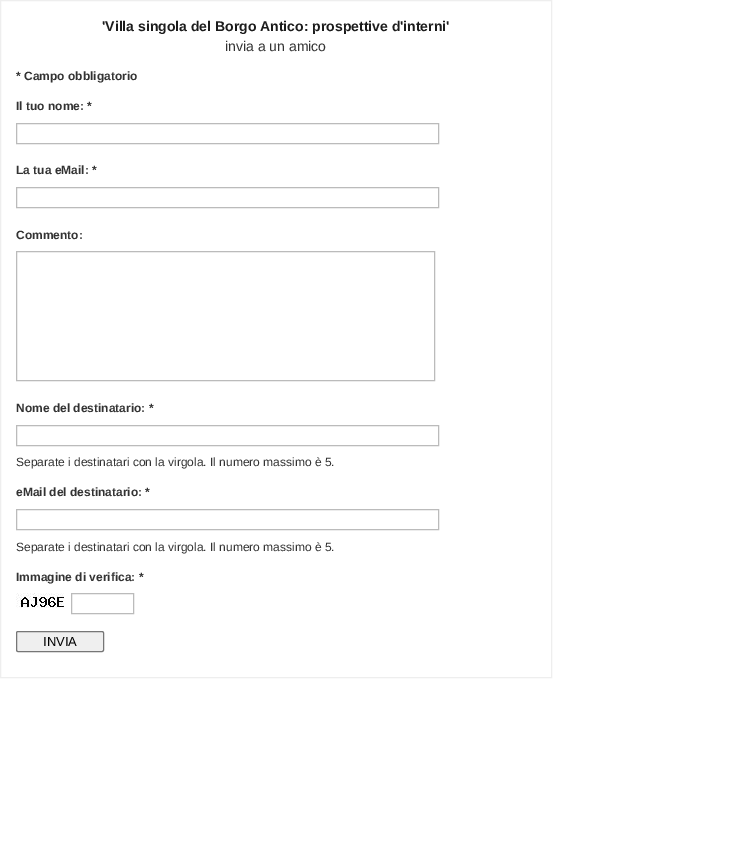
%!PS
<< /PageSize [741 863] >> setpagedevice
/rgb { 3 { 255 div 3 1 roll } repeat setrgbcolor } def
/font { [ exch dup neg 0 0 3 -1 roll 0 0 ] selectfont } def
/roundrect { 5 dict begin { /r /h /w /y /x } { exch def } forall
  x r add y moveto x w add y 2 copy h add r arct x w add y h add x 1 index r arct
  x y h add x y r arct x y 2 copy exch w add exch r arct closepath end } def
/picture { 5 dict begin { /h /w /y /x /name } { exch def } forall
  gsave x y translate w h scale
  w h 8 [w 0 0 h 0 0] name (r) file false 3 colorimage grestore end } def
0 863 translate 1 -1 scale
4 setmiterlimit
255 255 255 rgb
0 0 741 863 rectfill
238 238 238 rgb
0.5 0.5 551 677 rectstroke
187 187 187 rgb
16.5 123.5 422 20 rectstroke
16.5 187.5 422 20 rectstroke
16.5 251.5 418 129 rectstroke
16.5 425.5 422 20 rectstroke
16.5 509.5 422 20 rectstroke
(img/1.rgb) 16 593 48 15 picture
71.5 593.5 62 20 rectstroke
239 239 239 rgb
16.5 631.5 87 20 1.5 roundrect gsave fill grestore
118 118 118 rgb
stroke
/LiberationSans-Bold 14 font
28 28 28 rgb
102 31 moveto ('Villa singola del Borgo Antico: prospettive d'interni') show
/LiberationSans-Regular 14 font
51 51 51 rgb
225 51 moveto (invia a un amico) show
/LiberationSans-Bold 12 font
[
  [(* Campo obbligatorio) 16 80]
  [(Il tuo nome: *) 16 110]
  [(La tua eMail: *) 16 174]
  [(Commento:) 16 239]
  [(Nome del destinatario: *) 16 412]
] { aload pop moveto show } forall
/LiberationSans-Regular 12 font
16 466 moveto (Separate i destinatari con la virgola. Il numero massimo è 5.) show
/LiberationSans-Bold 12 font
16 496 moveto (eMail del destinatario: *) show
/LiberationSans-Regular 12 font
16 551 moveto (Separate i destinatari con la virgola. Il numero massimo è 5.) show
/LiberationSans-Bold 12 font
16 581 moveto (Immagine di verifica: *) show
/LiberationSans-Regular 13 font
0 0 0 rgb
43 646 moveto (INVIA) show
showpage
